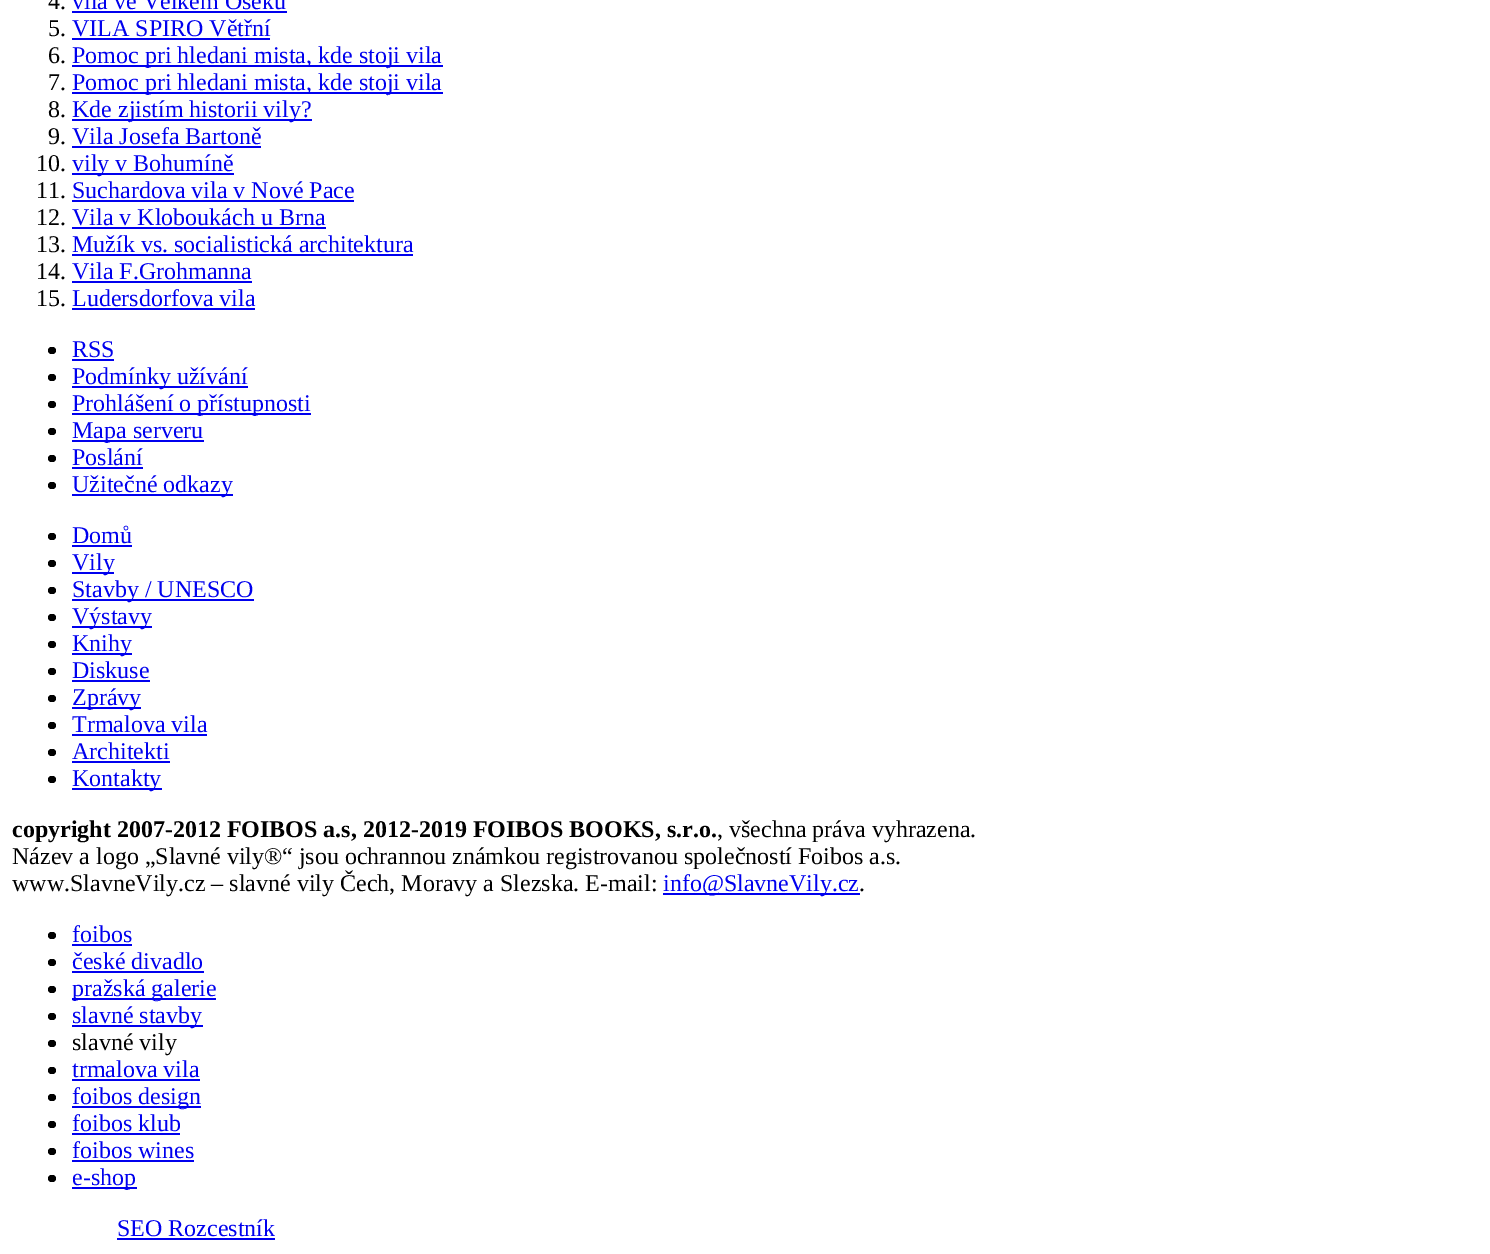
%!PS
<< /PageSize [1490 1254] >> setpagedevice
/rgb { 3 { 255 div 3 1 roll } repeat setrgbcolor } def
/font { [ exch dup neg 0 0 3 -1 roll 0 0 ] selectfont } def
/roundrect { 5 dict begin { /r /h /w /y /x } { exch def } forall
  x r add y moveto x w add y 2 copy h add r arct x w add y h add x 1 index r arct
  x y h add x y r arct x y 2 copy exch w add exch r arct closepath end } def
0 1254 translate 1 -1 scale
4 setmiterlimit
255 255 255 rgb
0 0 1490 1254 rectfill
[
  [72 11 215 2 0 0 238]
  [72 38 198 2 0 0 238]
  [72 65 371 2 0 0 238]
  [72 92 371 2 0 0 238]
  [72 119 240 2 0 0 238]
  [72 146 189 2 0 0 238]
  [72 173 162 2 0 0 238]
  [72 200 282 2 0 0 238]
  [72 227 254 2 0 0 238]
  [72 254 341 2 0 0 238]
  [72 281 180 2 0 0 238]
  [72 308 183 2 0 0 238]
] { aload pop rgb rectfill } forall
0 0 0 rgb
48 347 8 7 3.5 roundrect fill
0 0 238 rgb
72 359 42 2 rectfill
0 0 0 rgb
48 374 8 7 3.5 roundrect fill
0 0 238 rgb
72 386 176 2 rectfill
0 0 0 rgb
48 401 8 7 3.5 roundrect fill
0 0 238 rgb
72 413 239 2 rectfill
0 0 0 rgb
48 428 8 7 3.5 roundrect fill
0 0 238 rgb
72 440 132 2 rectfill
0 0 0 rgb
48 455 8 7 3.5 roundrect fill
0 0 238 rgb
72 467 71 2 rectfill
0 0 0 rgb
48 482 8 7 3.5 roundrect fill
0 0 238 rgb
72 494 161 2 rectfill
0 0 0 rgb
48 533 8 7 3.5 roundrect fill
0 0 238 rgb
72 545 60 2 rectfill
0 0 0 rgb
48 560 8 7 3.5 roundrect fill
0 0 238 rgb
72 572 42 2 rectfill
0 0 0 rgb
48 587 8 7 3.5 roundrect fill
0 0 238 rgb
72 599 182 2 rectfill
0 0 0 rgb
48 614 8 7 3.5 roundrect fill
0 0 238 rgb
72 626 80 2 rectfill
0 0 0 rgb
48 641 8 7 3.5 roundrect fill
0 0 238 rgb
72 653 60 2 rectfill
0 0 0 rgb
48 668 8 7 3.5 roundrect fill
0 0 238 rgb
72 680 78 2 rectfill
0 0 0 rgb
48 695 8 7 3.5 roundrect fill
0 0 238 rgb
72 707 69 2 rectfill
0 0 0 rgb
48 722 8 7 3.5 roundrect fill
0 0 238 rgb
72 734 135 2 rectfill
0 0 0 rgb
48 749 8 7 3.5 roundrect fill
0 0 238 rgb
72 761 98 2 rectfill
0 0 0 rgb
48 776 8 7 3.5 roundrect fill
0 0 238 rgb
72 788 90 2 rectfill
663 893 197 2 rectfill
0 0 0 rgb
48 932 8 7 3.5 roundrect fill
0 0 238 rgb
72 944 60 2 rectfill
0 0 0 rgb
48 959 8 7 3.5 roundrect fill
0 0 238 rgb
72 971 132 2 rectfill
0 0 0 rgb
48 986 8 7 3.5 roundrect fill
0 0 238 rgb
72 998 144 2 rectfill
0 0 0 rgb
48 1013 8 7 3.5 roundrect fill
0 0 238 rgb
72 1025 131 2 rectfill
0 0 0 rgb
48 1040 8 7 3.5 roundrect fill
48 1067 8 7 3.5 roundrect fill
0 0 238 rgb
72 1079 128 2 rectfill
0 0 0 rgb
48 1094 8 7 3.5 roundrect fill
0 0 238 rgb
72 1106 129 2 rectfill
0 0 0 rgb
48 1121 8 7 3.5 roundrect fill
0 0 238 rgb
72 1133 108 2 rectfill
0 0 0 rgb
48 1148 8 7 3.5 roundrect fill
0 0 238 rgb
72 1160 122 2 rectfill
0 0 0 rgb
48 1175 8 7 3.5 roundrect fill
0 0 238 rgb
72 1187 65 2 rectfill
117 1238 158 2 rectfill
/LiberationSerif-Regular 24 font
0 0 0 rgb
48 9 moveto (4.) show
0 0 238 rgb
72 9 moveto (vila ve Velkém Oseku) show
0 0 0 rgb
48 36 moveto (5.) show
0 0 238 rgb
72 36 moveto (VILA SPIRO Větřní) show
0 0 0 rgb
48 63 moveto (6.) show
0 0 238 rgb
72 63 moveto (Pomoc pri hledani mista, kde stoji vila) show
0 0 0 rgb
48 90 moveto (7.) show
0 0 238 rgb
72 90 moveto (Pomoc pri hledani mista, kde stoji vila) show
0 0 0 rgb
48 117 moveto (8.) show
0 0 238 rgb
72 117 moveto (Kde zjistím historii vily?) show
0 0 0 rgb
48 144 moveto (9.) show
0 0 238 rgb
72 144 moveto (Vila Josefa Bartoně) show
0 0 0 rgb
36 171 moveto (10.) show
0 0 238 rgb
72 171 moveto (vily v Bohumíně) show
0 0 0 rgb
36 198 moveto (11.) show
0 0 238 rgb
72 198 moveto (Suchardova vila v Nové Pace) show
0 0 0 rgb
36 225 moveto (12.) show
0 0 238 rgb
72 225 moveto (Vila v Kloboukách u Brna) show
0 0 0 rgb
36 252 moveto (13.) show
0 0 238 rgb
72 252 moveto (Mužík vs. socialistická architektura) show
0 0 0 rgb
36 279 moveto (14.) show
0 0 238 rgb
72 279 moveto (Vila F.Grohmanna) show
0 0 0 rgb
36 306 moveto (15.) show
0 0 238 rgb
[
  [(Ludersdorfova vila) 72 306]
  [(RSS) 72 357]
  [(Podmínky užívání) 72 384]
  [(Prohlášení o přístupnosti) 72 411]
  [(Mapa serveru) 72 438]
  [(Poslání) 72 465]
  [(Užitečné odkazy) 72 492]
  [(Domů) 72 543]
  [(Vily) 72 570]
  [(Stavby / UNESCO) 72 597]
  [(Výstavy) 72 624]
  [(Knihy) 72 651]
  [(Diskuse) 72 678]
  [(Zprávy) 72 705]
  [(Trmalova vila) 72 732]
  [(Architekti) 72 759]
  [(Kontakty) 72 786]
] { aload pop moveto show } forall
/LiberationSerif-Bold 24 font
0 0 0 rgb
12 837 moveto (copyright 2007-2012 FOIBOS a.s, 2012-2019 FOIBOS BOOKS, s.r.o.) show
/LiberationSerif-Regular 24 font
[
  [(, všechna práva vyhrazena.) 717 837]
  [(Název a logo „Slavné vily®“ jsou ochrannou známkou registrovanou společností Foibos a.s.) 12 864]
  [(www.SlavneVily.cz – slavné vily Čech, Moravy a Slezska. E-mail:) 12 891]
] { aload pop moveto show } forall
0 0 238 rgb
663 891 moveto (info@SlavneVily.cz) show
0 0 0 rgb
859 891 moveto (.) show
0 0 238 rgb
[
  [(foibos) 72 942]
  [(české divadlo) 72 969]
  [(pražská galerie) 72 996]
  [(slavné stavby) 72 1023]
] { aload pop moveto show } forall
0 0 0 rgb
72 1050 moveto (slavné vily) show
0 0 238 rgb
[
  [(trmalova vila) 72 1077]
  [(foibos design) 72 1104]
  [(foibos klub) 72 1131]
  [(foibos wines) 72 1158]
  [(e-shop) 72 1185]
  [(SEO Rozcestník) 117 1236]
] { aload pop moveto show } forall
showpage
